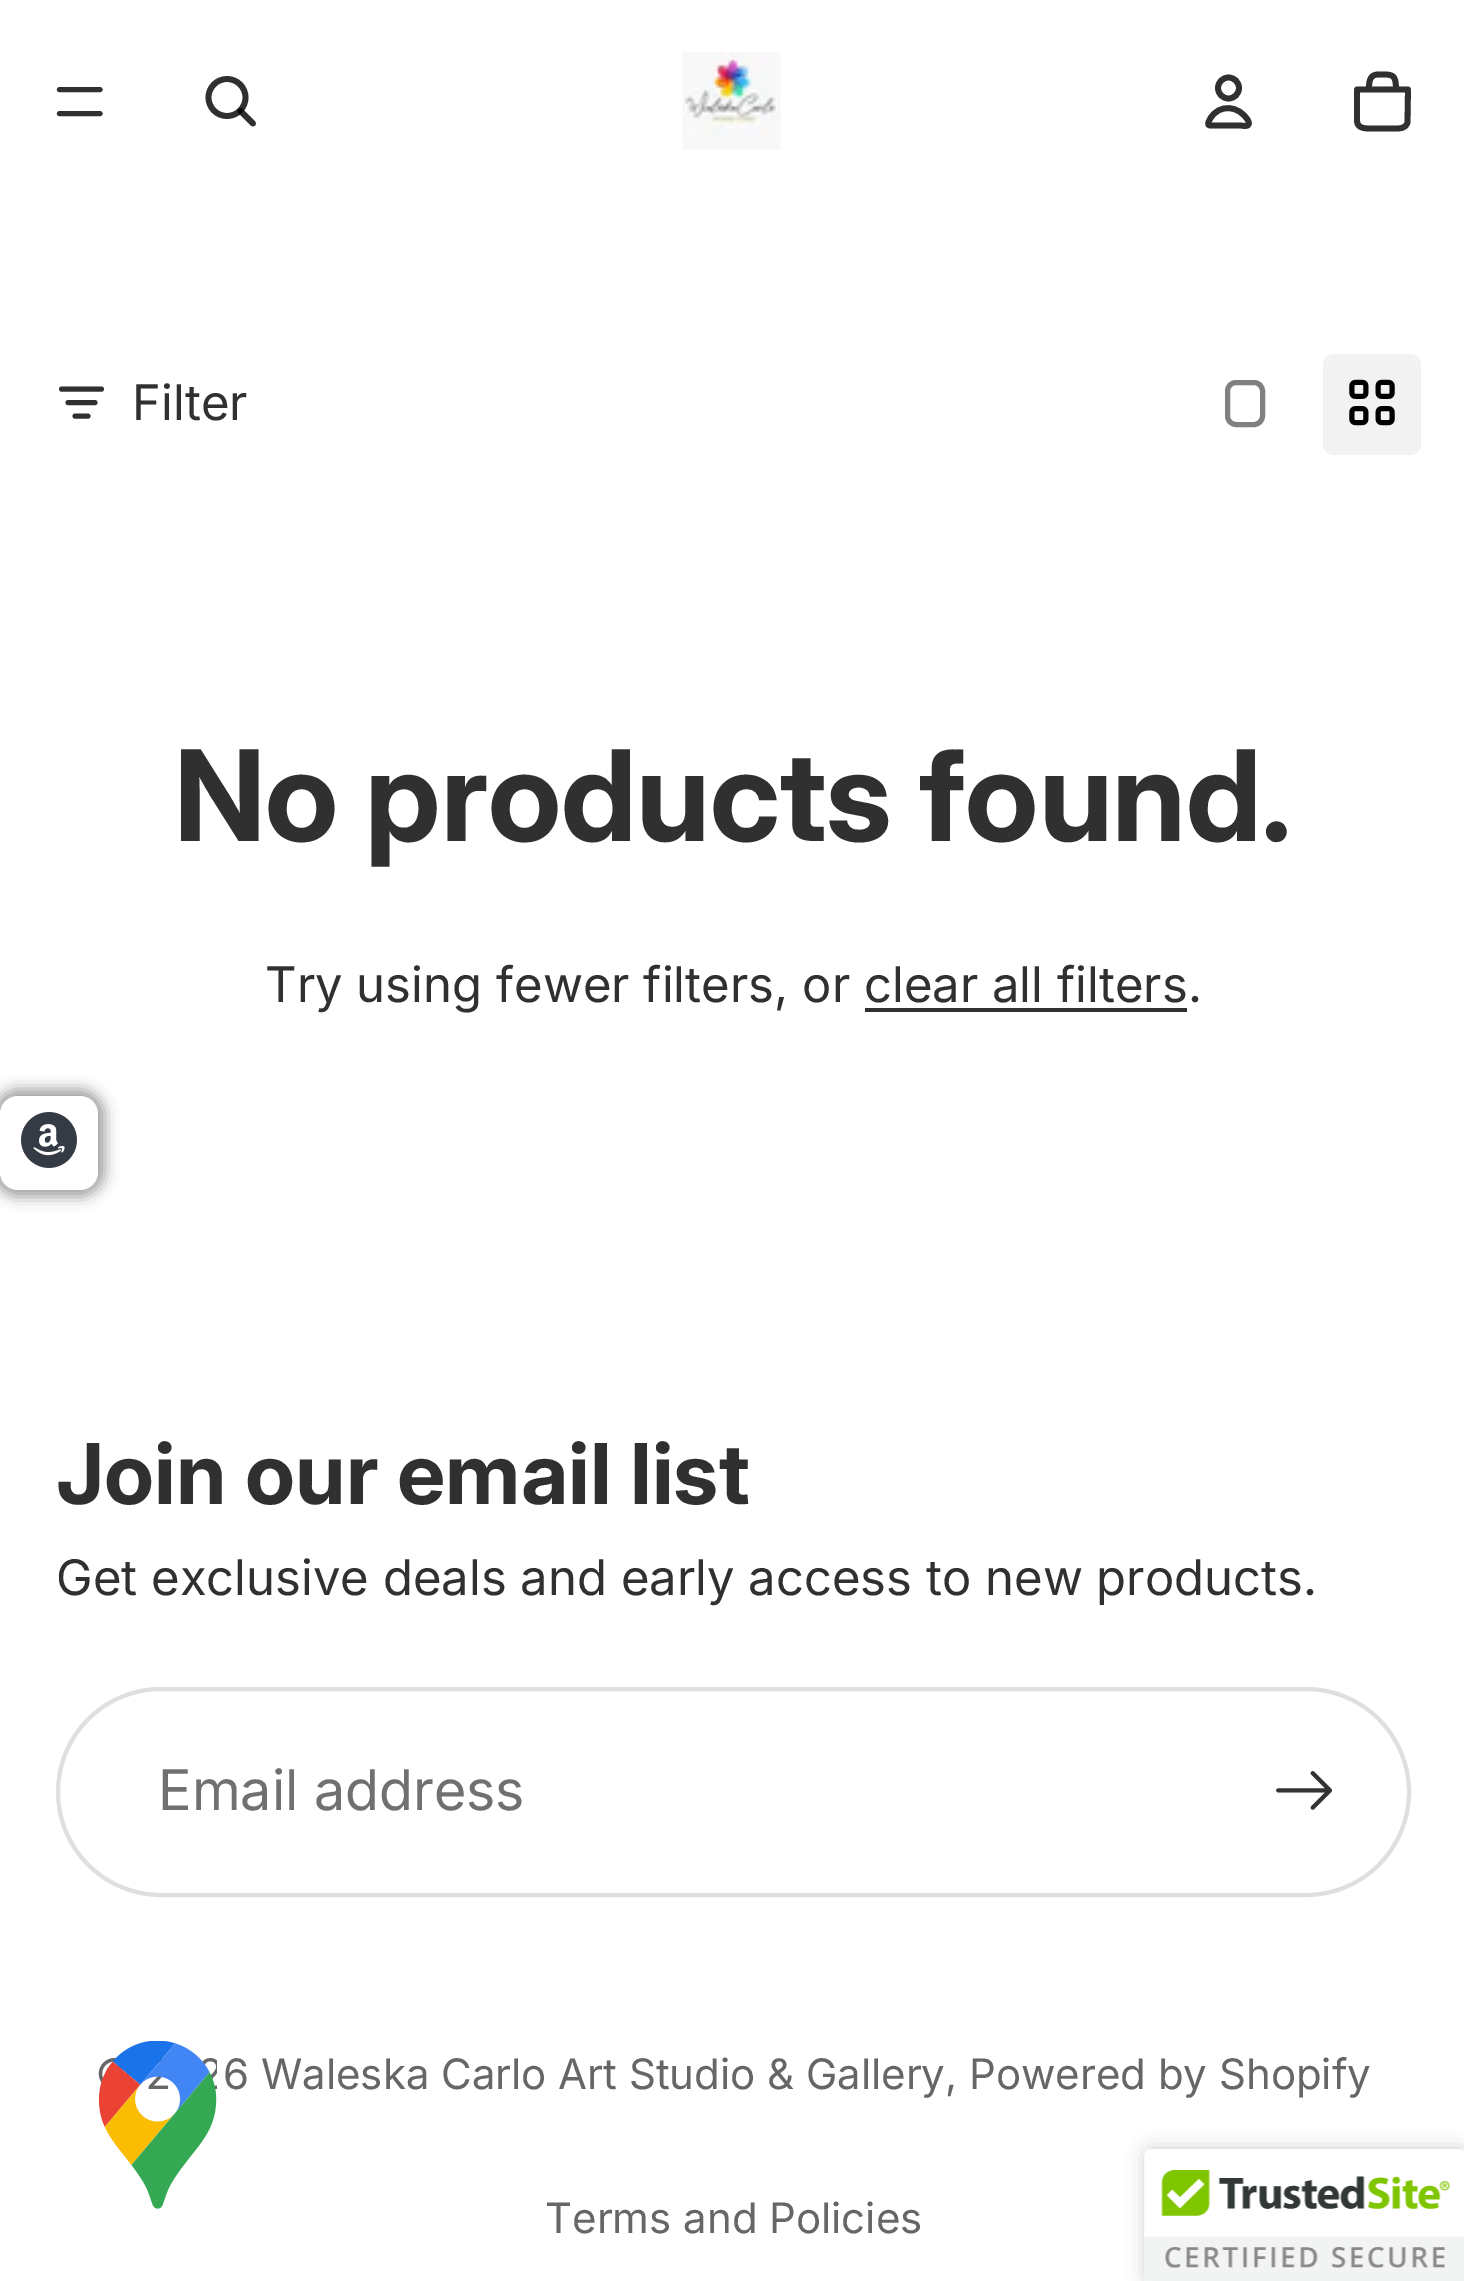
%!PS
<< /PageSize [1464 2281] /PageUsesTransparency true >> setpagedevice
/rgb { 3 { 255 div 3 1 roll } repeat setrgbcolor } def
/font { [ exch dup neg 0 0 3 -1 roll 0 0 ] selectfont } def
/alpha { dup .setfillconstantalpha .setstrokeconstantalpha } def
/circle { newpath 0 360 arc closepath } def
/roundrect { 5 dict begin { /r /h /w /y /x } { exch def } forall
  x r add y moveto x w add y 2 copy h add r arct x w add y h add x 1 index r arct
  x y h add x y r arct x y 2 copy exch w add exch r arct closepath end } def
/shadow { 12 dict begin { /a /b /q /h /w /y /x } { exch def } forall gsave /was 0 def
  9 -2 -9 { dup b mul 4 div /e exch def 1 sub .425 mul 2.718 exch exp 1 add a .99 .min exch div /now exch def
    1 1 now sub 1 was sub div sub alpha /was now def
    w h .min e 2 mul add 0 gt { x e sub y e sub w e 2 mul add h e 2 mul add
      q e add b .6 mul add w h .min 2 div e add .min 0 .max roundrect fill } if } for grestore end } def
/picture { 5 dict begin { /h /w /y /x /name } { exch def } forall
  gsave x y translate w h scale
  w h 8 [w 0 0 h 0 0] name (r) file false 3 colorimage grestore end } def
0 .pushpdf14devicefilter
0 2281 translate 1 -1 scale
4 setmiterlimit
255 255 255 rgb
0 0 1464 2281 rectfill
48 48 48 rgb
5.1 setlinewidth
1 setlinecap
59.5 89.5 moveto 100 89.5 lineto 59.5 113.5 moveto 100 113.5 lineto stroke
5.8 setlinewidth
0 setlinecap
227 97.5 18.5 circle stroke
0.81 alpha
0 0 0 rgb
1 setlinecap
1 setlinejoin
240.5 111 moveto 253 123.5 lineto stroke
1 alpha
(img/1.rgb) 682 52 99 98 picture
48 48 48 rgb
0 setlinecap
0 setlinejoin
1228.5 88 10.5 circle stroke
1 setlinecap
1 setlinejoin
1210 119 moveto 1206 126.5 1208.5 125.5 1216.5 125.5 curveto 1240.5 125.5 lineto 1241.5 125.5 1247.5 127 1248.5 124.5 curveto 1249.5 123 1248.5 122 1248 120.5 curveto 1239.5 105.5 1219 103 1210 119 curveto stroke
1357 89.5 moveto 1408 89.5 lineto 1407.5 122.5 lineto 1405.5 129 1399.5 128.5 1394 128.5 curveto 1371 128.5 lineto 1365 128.5 1357 128.5 1357 120.5 curveto closepath 1378 74.5 moveto 1392.5 74.5 1396 73.5 1396 89.5 curveto 1369 89.5 lineto 1369 83 1369 74.5 1378 74.5 curveto stroke
5 setlinewidth
0 setlinejoin
101.5 389 moveto 61.5 389 lineto 95 402.5 moveto 68 402.5 lineto 75 416 moveto 88 416 lineto stroke
128 128 128 rgb
0 setlinecap
1227.5 382.5 35 42 8.5 roundrect stroke
242 242 242 rgb
1323 354 98 101 11 roundrect fill
(img/2.rgb) 1349 379 46 47 picture
48 48 48 rgb
865 1008 322 4 rectfill
gsave
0 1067 moveto 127 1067 lineto 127 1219 lineto 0 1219 lineto closepath 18 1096 moveto 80 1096 lineto 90 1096 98 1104 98 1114 curveto 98 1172 lineto 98 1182 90 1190 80 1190 curveto 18 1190 lineto 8 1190 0 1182 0 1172 curveto 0 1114 lineto 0 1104 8 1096 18 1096 curveto closepath eoclip newpath
158 158 158 rgb
-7 1089 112 108 25 7 1 shadow
grestore
255 255 255 rgb
0 1096 98 94 18 roundrect fill
(img/3.rgb) 21 1112 56 56 picture
223 223 223 rgb
4 setlinewidth
58 1689 1351 206 103 roundrect stroke
(img/4.rgb) 1276 1771 57 39 picture
(img/5.rgb) 98 2041 119 168 picture
0 0 0 rgb
1145 2149 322 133 7 9 0.2 shadow
255 255 255 rgb
1152 2149 moveto 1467 2149 lineto 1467 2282 lineto 1145 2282 lineto 1145 2156 lineto 1145 2152 1148 2149 1152 2149 curveto closepath fill
(img/6.rgb) 1144 2149 320 132 picture
/Inter-Regular 49 font
48 48 48 rgb
132 420 moveto (Filter) show
/Inter-Bold 126 font
174 841 moveto (No products found.) show
/Inter-Regular 49 font
265 1002 moveto (Try using fewer filters, or clear all filters.) show
/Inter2-Bold 84 font
56 1504 moveto (Join our email list) show
/Inter-Regular 49 font
56 1595 moveto (Get exclusive deals and early access to new products.) show
/Inter2-Regular 56 font
112 112 112 rgb
158 1810 moveto (Email address) show
/Inter-Regular 42 font
102 102 102 rgb
223 2089 moveto (6 Waleska Carlo Art Studio & Gallery, Powered by Shopify) show
545 2233 moveto (Terms and Policies) show
.poppdf14devicefilter showpage
